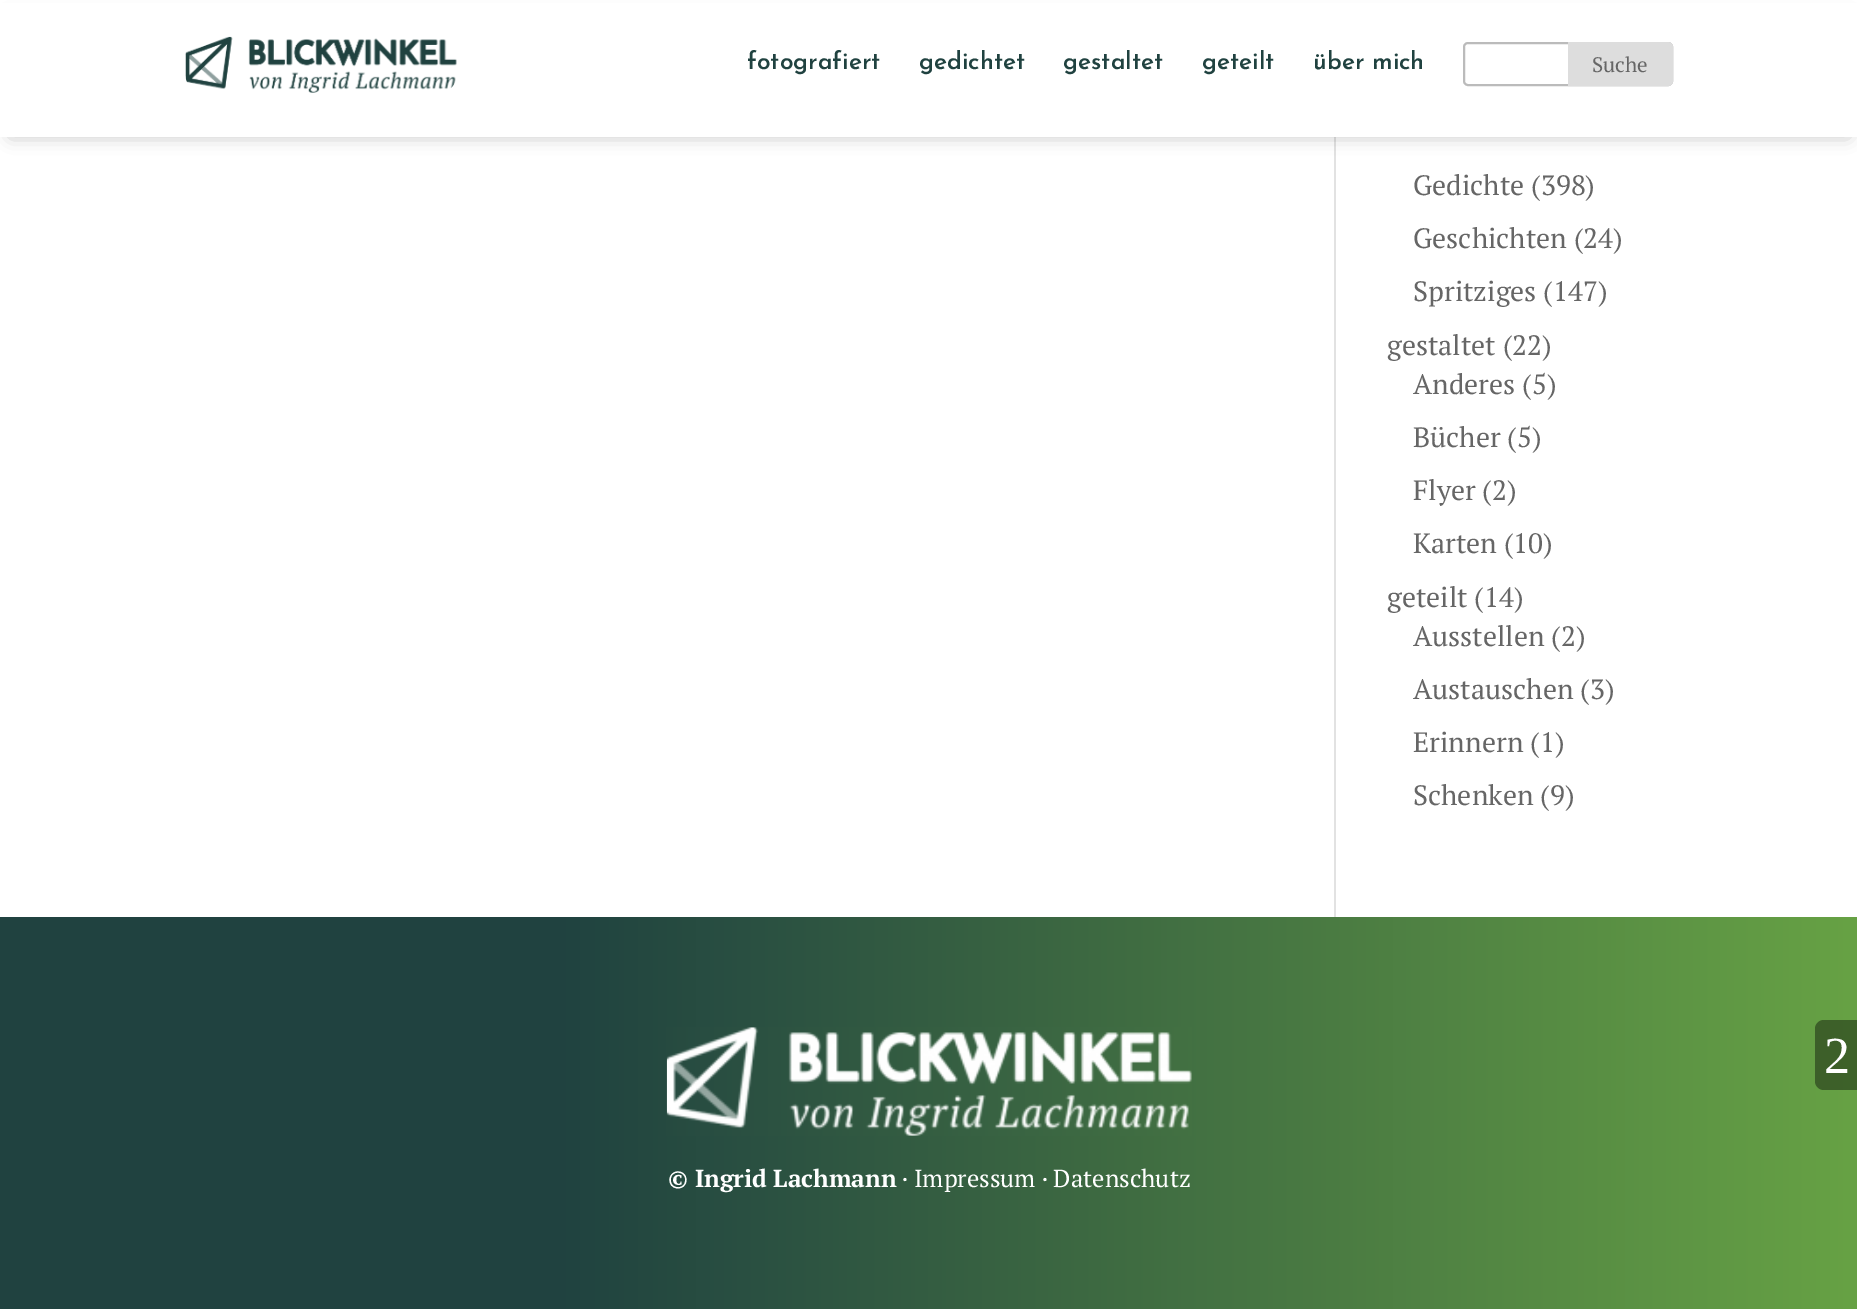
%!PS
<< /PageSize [1857 1309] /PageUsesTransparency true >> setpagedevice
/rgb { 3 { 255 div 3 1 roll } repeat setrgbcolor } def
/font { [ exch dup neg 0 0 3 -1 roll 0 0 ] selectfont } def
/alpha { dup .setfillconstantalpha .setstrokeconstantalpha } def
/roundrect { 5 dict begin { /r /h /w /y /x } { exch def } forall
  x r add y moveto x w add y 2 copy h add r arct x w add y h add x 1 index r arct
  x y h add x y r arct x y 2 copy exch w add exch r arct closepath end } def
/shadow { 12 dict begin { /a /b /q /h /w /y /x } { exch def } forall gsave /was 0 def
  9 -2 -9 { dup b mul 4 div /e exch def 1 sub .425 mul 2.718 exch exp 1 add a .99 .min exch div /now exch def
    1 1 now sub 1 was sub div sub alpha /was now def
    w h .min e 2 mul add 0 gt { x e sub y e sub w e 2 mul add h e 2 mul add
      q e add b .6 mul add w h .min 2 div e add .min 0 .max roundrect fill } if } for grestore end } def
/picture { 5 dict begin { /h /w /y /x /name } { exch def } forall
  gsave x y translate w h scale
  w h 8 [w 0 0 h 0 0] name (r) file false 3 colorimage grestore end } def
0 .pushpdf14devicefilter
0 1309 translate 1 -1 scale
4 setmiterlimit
255 255 255 rgb
0 0 1857 1309 rectfill
226 226 226 rgb
1334 137 2 780 rectfill
0 0 0 rgb
11 19 1837 116 0 9 0.3 shadow
255 255 255 rgb
0 3 1857 134 rectfill
(img/1.rgb) 185 36 272 57 picture
187 187 187 rgb
2 setlinewidth
1464 43 208 42 4 roundrect stroke
221 221 221 rgb
1569 43 moveto 1668 43 lineto 1670 43 1672 45 1672 47 curveto 1672 81 lineto 1672 83 1670 85 1668 85 curveto 1569 85 lineto closepath gsave fill grestore
stroke
gsave 0 917 moveto 1857 917 lineto 1857 1309 lineto 0 1309 lineto closepath clip newpath
<< /ShadingType 2 /ColorSpace /DeviceRGB /Coords [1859 1113 0 1113] /Extend [true true] /Function << /FunctionType 3 /Domain [0 1] /Functions [<< /FunctionType 2 /Domain [0 1] /C0 [0.404 0.635 0.271] /C1 [0.125 0.259 0.251] /N 1 >> << /FunctionType 2 /Domain [0 1] /C0 [0.125 0.259 0.251] /C1 [0.125 0.259 0.251] /N 1 >>] /Bounds [0.7] /Encode [0 1 0 1] >> >> shfill grestore
(img/2.rgb) 666 1027 526 109 picture
0.4 alpha
0 0 0 rgb
1824 1020 moveto 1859 1020 lineto 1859 1090 lineto 1824 1090 lineto 1819 1090 1815 1086 1815 1081 curveto 1815 1029 lineto 1815 1024 1819 1020 1824 1020 curveto closepath fill
/JosefinSans-SemiBold 24.5 font
1 alpha
32 66 64 rgb
[
  [(fotografiert) 747 69]
  [(gedichtet) 919 69]
  [(gestaltet) 1063 69]
  [(geteilt) 1202 69]
  [(über mich) 1313 69]
] { aload pop moveto show } forall
/PTSerif-Regular 21 font
102 102 102 rgb
1592 72 moveto (Suche) show
/PTSerif-Regular 28 font
[
  [(Gedichte \(398\)) 1413 195]
  [(Geschichten \(24\)) 1413 248]
  [(Spritziges \(147\)) 1413 301]
  [(gestaltet \(22\)) 1387 355]
  [(Anderes \(5\)) 1413 394]
  [(Bücher \(5\)) 1413 447]
  [(Flyer \(2\)) 1413 500]
  [(Karten \(10\)) 1413 553]
  [(geteilt \(14\)) 1387 607]
  [(Ausstellen \(2\)) 1413 646]
  [(Austauschen \(3\)) 1413 699]
  [(Erinnern \(1\)) 1413 752]
  [(Schenken \(9\)) 1413 805]
] { aload pop moveto show } forall
/PTSerif-Bold 24.5 font
255 255 255 rgb
668 1187 moveto (© Ingrid Lachmann) show
/PTSerif-Regular 24.5 font
902 1187 moveto (· Impressum · Datenschutz) show
/LiberationSerif-Regular 52 font
1824 1073 moveto (2) show
.poppdf14devicefilter showpage
